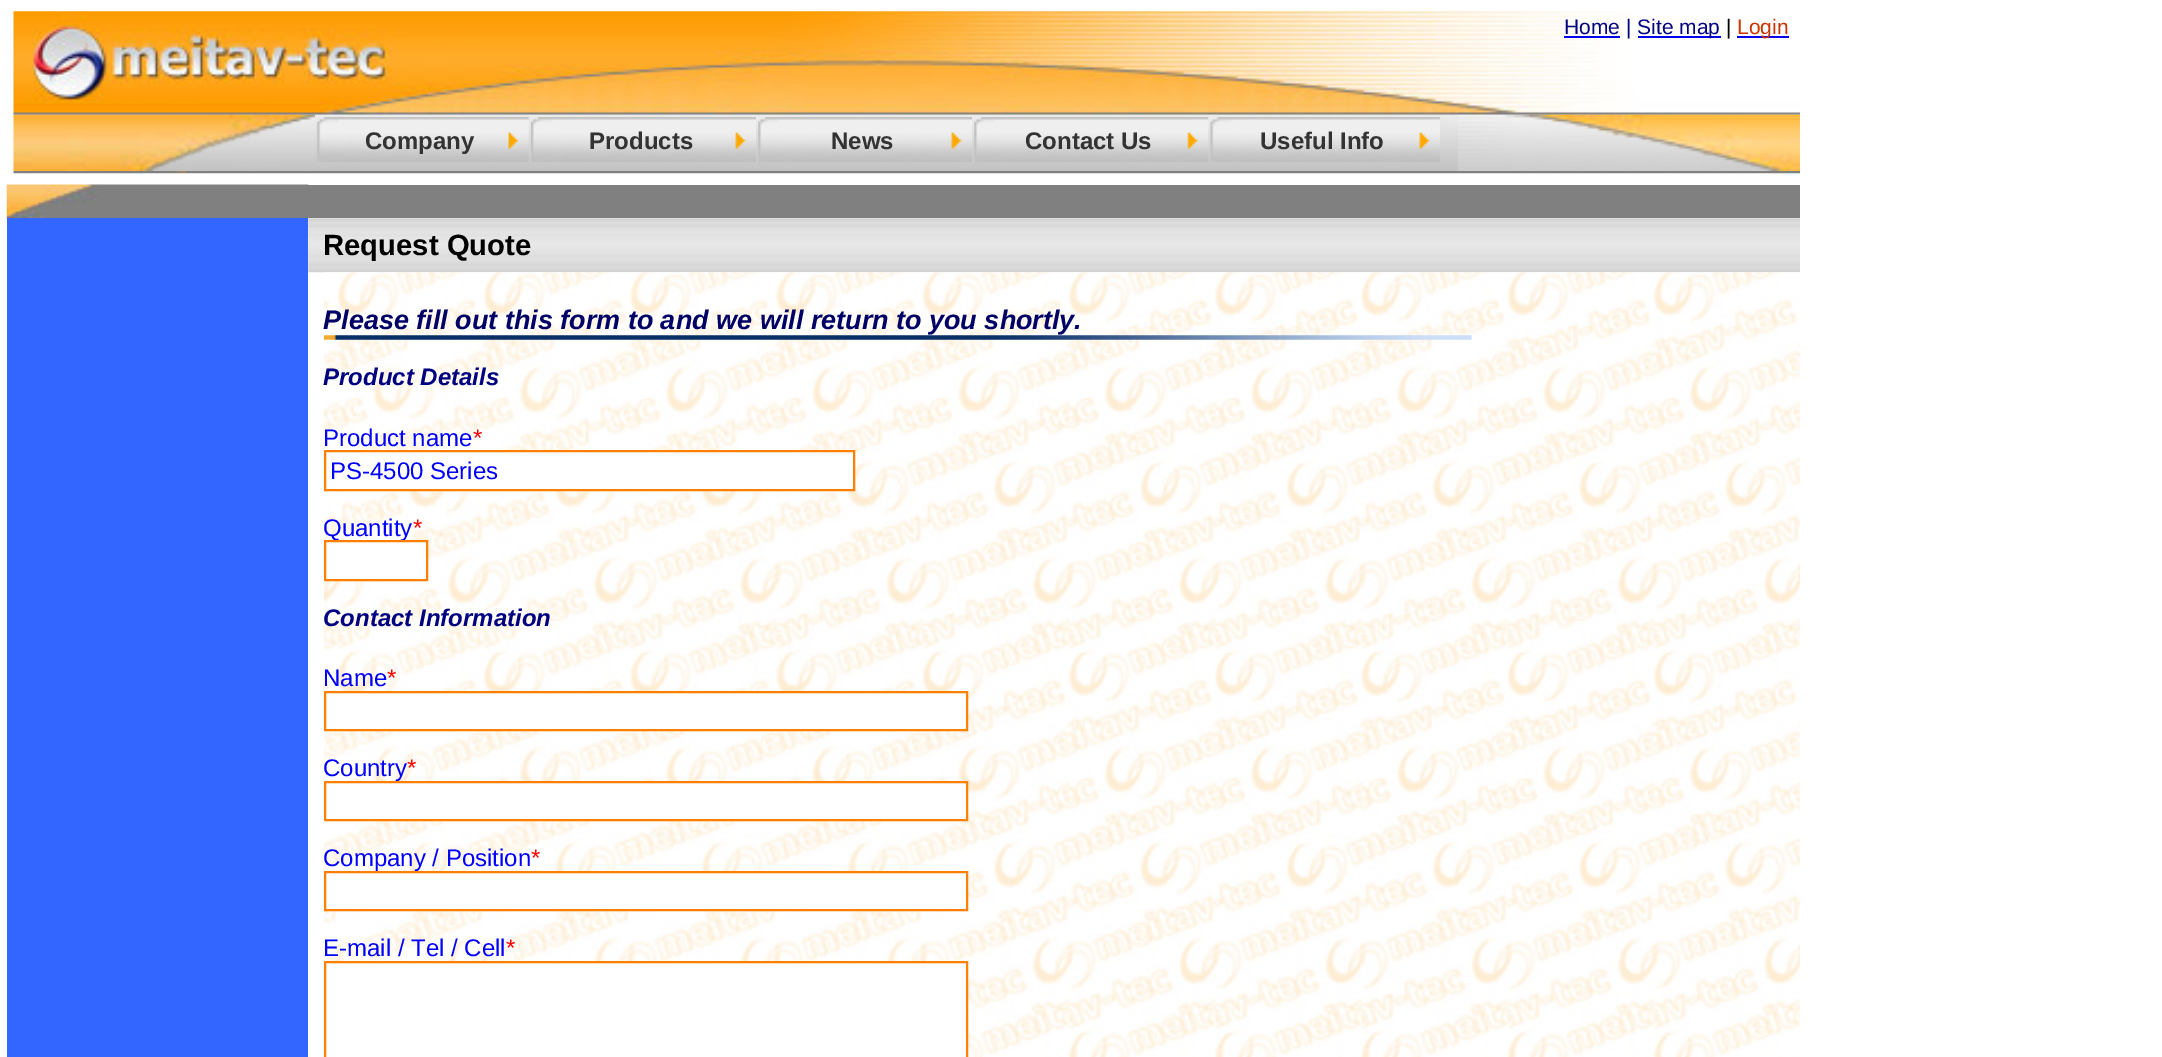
%!PS
<< /PageSize [2162 1057] >> setpagedevice
/rgb { 3 { 255 div 3 1 roll } repeat setrgbcolor } def
/font { [ exch dup neg 0 0 3 -1 roll 0 0 ] selectfont } def
/picture { 5 dict begin { /h /w /y /x /name } { exch def } forall
  gsave x y translate w h scale
  w h 8 [w 0 0 h 0 0] name (r) file false 3 colorimage grestore end } def
0 1057 translate 1 -1 scale
4 setmiterlimit
255 255 255 rgb
0 0 2162 1057 rectfill
(img/1.rgb) 13 11 1787 104 picture
[
  [1564 36 56 2 0 0 238]
  [1638 36 83 2 0 0 238]
  [1737 36 52 2 0 0 238]
] { aload pop rgb rectfill } forall
(img/2.rgb) 13 114 302 57 picture
(img/3.rgb) 315 114 1143 57 picture
(img/4.rgb) 317 117 212 45 picture
(img/5.rgb) 508 132 11 17 picture
(img/6.rgb) 531 117 225 45 picture
(img/7.rgb) 735 132 11 17 picture
(img/8.rgb) 758 117 214 45 picture
(img/9.rgb) 951 132 11 17 picture
(img/10.rgb) 974 117 235 45 picture
(img/11.rgb) 1187 132 11 17 picture
(img/12.rgb) 1210 117 230 45 picture
(img/13.rgb) 1419 132 11 17 picture
(img/14.rgb) 1458 114 342 57 picture
(img/15.rgb) 13 171 1787 3 picture
(img/16.rgb) 6 184 303 35 picture
128 128 128 rgb
308 185 1492 33 rectfill
51 102 255 rgb
7 218 301 839 rectfill
(img/17.rgb) 308 218 16 55 picture
(img/18.rgb) 324 218 1476 55 picture
(img/19.rgb) 324 272 1476 785 picture
(img/20.rgb) 324 335 1148 5 picture
255 255 255 rgb
325 451 moveto 854 451 lineto 854 490 lineto 325 490 lineto closepath gsave fill grestore
255 128 0 rgb
2 setlinewidth
stroke
255 255 255 rgb
325 692 moveto 967 692 lineto 967 730 lineto 325 730 lineto closepath gsave fill grestore
255 128 0 rgb
stroke
255 255 255 rgb
325 782 moveto 967 782 lineto 967 820 lineto 325 820 lineto closepath gsave fill grestore
255 128 0 rgb
stroke
255 255 255 rgb
325 872 moveto 967 872 lineto 967 910 lineto 325 910 lineto closepath gsave fill grestore
255 128 0 rgb
stroke
255 255 255 rgb
325 962 moveto 967 962 lineto 967 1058 lineto 325 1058 lineto closepath gsave fill grestore
255 128 0 rgb
stroke
/LiberationSans-Regular 21 font
0 0 128 rgb
1564 34 moveto (Home |) show
1637 34 moveto (Site map) show
0 0 0 rgb
1726 34 moveto (|) show
204 51 0 rgb
1737 34 moveto (Login) show
/LiberationSans-Bold 24 font
51 51 51 rgb
[
  [(Company) 365 149]
  [(Products) 589 149]
  [(News) 831 149]
  [(Contact Us) 1025 149]
  [(Useful Info) 1260 149]
] { aload pop moveto show } forall
/LiberationSans-Bold 29.25 font
0 0 0 rgb
323 255 moveto (Request Quote) show
/LiberationSans-BoldItalic 27 font
0 0 102 rgb
323 329 moveto (Please fill out this form to and we will return to you shortly.) show
/LiberationSans-BoldItalic 24 font
0 0 128 rgb
323 385 moveto (Product Details) show
/LiberationSans-Regular 24 font
0 0 255 rgb
323 446 moveto (Product name) show
255 0 0 rgb
473 446 moveto (*) show
0 0 255 rgb
330 479 moveto (PS-4500 Series) show
323 536 moveto (Quantity) show
255 0 0 rgb
413 536 moveto (*) show
255 255 255 rgb
325 541 moveto 427 541 lineto 427 580 lineto 325 580 lineto closepath gsave fill grestore
255 128 0 rgb
stroke
/LiberationSans-BoldItalic 24 font
0 0 128 rgb
323 626 moveto (Contact Information) show
/LiberationSans-Regular 24 font
0 0 255 rgb
323 686 moveto (Name) show
255 0 0 rgb
387 686 moveto (*) show
0 0 255 rgb
323 776 moveto (Country) show
255 0 0 rgb
407 776 moveto (*) show
0 0 255 rgb
323 866 moveto (Company / Position) show
255 0 0 rgb
531 866 moveto (*) show
0 0 255 rgb
323 956 moveto (E-mail / Tel / Cell) show
255 0 0 rgb
506 956 moveto (*) show
showpage
